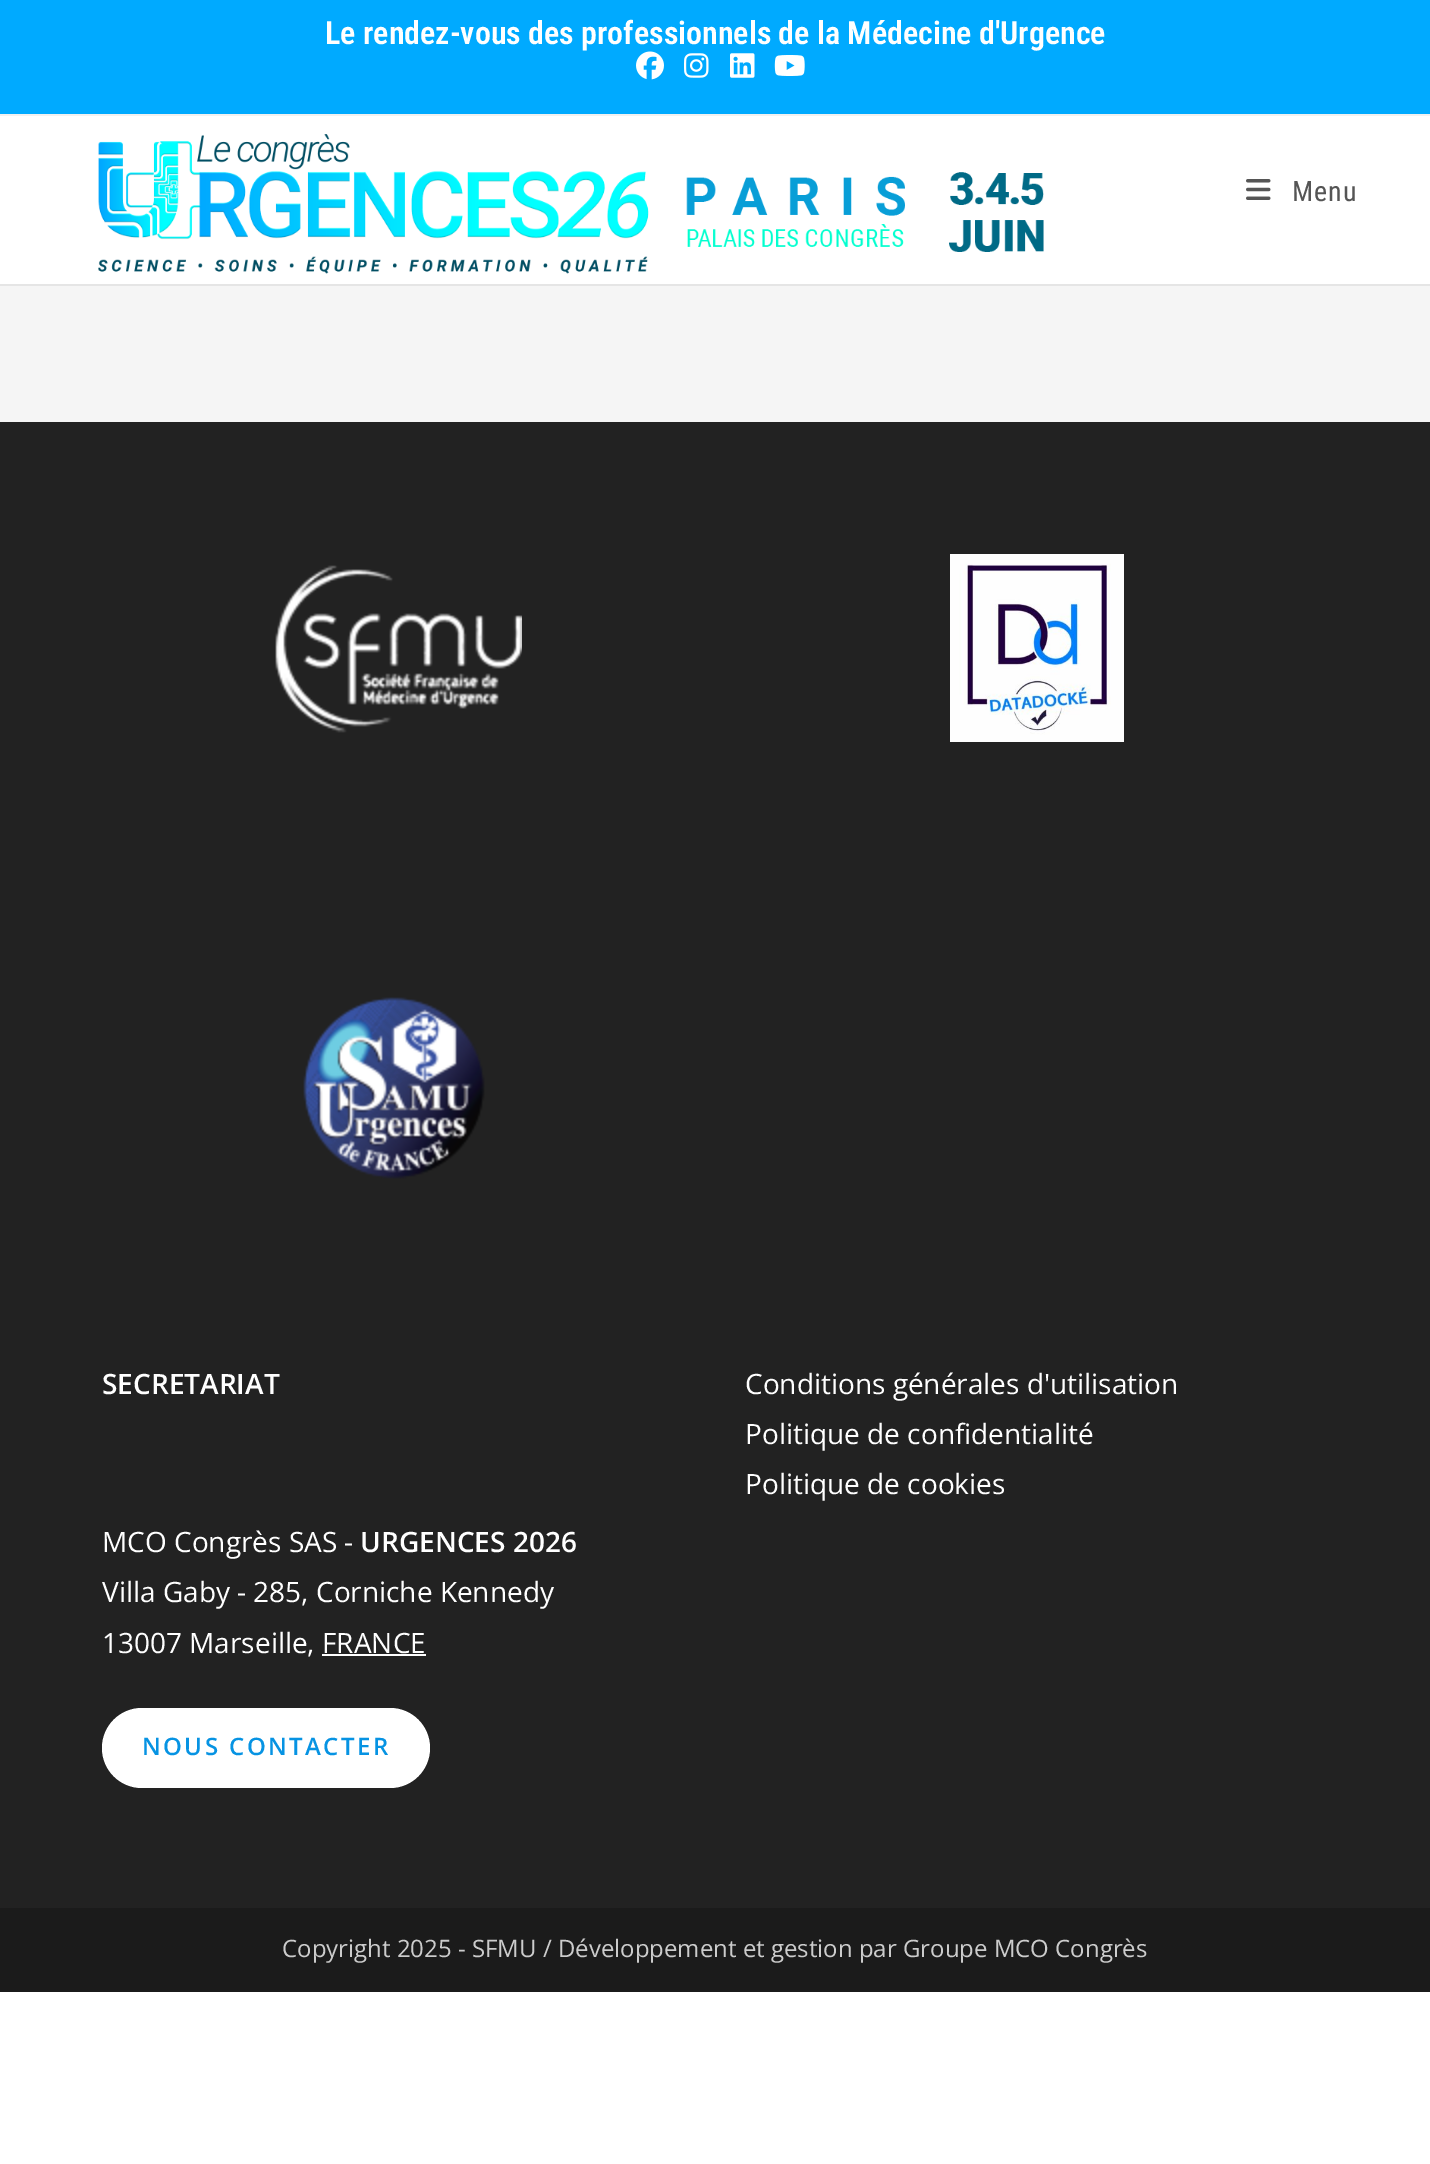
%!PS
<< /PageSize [1430 2164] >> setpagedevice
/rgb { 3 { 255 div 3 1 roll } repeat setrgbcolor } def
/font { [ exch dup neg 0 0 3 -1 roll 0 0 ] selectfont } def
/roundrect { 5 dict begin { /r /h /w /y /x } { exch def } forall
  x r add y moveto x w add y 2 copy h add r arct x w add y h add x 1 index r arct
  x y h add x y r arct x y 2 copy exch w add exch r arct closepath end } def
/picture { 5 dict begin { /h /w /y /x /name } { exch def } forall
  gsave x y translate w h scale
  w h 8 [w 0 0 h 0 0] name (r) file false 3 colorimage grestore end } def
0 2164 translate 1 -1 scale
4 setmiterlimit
255 255 255 rgb
0 0 1430 2164 rectfill
0 170 255 rgb
0 0 1430 114 rectfill
241 241 241 rgb
0 114 1430 2 rectfill
(img/1.rgb) 636 51 28 29 picture
(img/2.rgb) 684 53 25 25 picture
(img/3.rgb) 730 53 25 25 picture
(img/4.rgb) 774 55 31 21 picture
229 229 229 rgb
0 284 1430 2 rectfill
(img/5.rgb) 98 134 946 140 picture
(img/6.rgb) 1246 179 25 21 picture
245 245 245 rgb
0 286 1430 136 rectfill
34 34 34 rgb
0 422 1430 1486 rectfill
(img/7.rgb) 275 565 247 168 picture
(img/8.rgb) 303 997 182 182 picture
(img/9.rgb) 950 554 174 188 picture
255 255 255 rgb
322 1654 104 2 rectfill
102 1708 328 80 40 roundrect fill
27 27 27 rgb
0 1908 1430 84 rectfill
/RobotoCondensed-SemiBold 32 font
255 255 255 rgb
325 44 moveto (Le rendez-vous des professionnels de la Médecine d'Urgence) show
/RobotoCondensed-Regular 28 font
85 85 85 rgb
1292 201 moveto 1 0 (Menu) ashow
/OpenSans-SemiBold 28 font
255 255 255 rgb
102 1394 moveto (SECRETARIAT) show
/OpenSans-Regular 28 font
102 1552 moveto (MCO Congrès SAS -) show
/OpenSans-SemiBold 28 font
360 1552 moveto (URGENCES 2026) show
/OpenSans-Regular 28 font
102 1602 moveto (Villa Gaby - 285, Corniche Kennedy) show
102 1653 moveto (13007 Marseille, FRANCE) show
/OpenSans-SemiBold 24 font
6 147 227 rgb
142 1755 moveto 2.4 0 (NOUS CONTACTER) ashow
/OpenSans-Regular 28 font
255 255 255 rgb
[
  [(Conditions générales d'utilisation) 745 1394]
  [(Politique de confidentialité) 745 1444]
  [(Politique de cookies) 745 1494]
] { aload pop moveto show } forall
/OpenSans-Regular 24 font
204 204 204 rgb
282 1957 moveto (Copyright 2025 - SFMU / Développement et gestion par Groupe MCO Congrès) show
showpage
